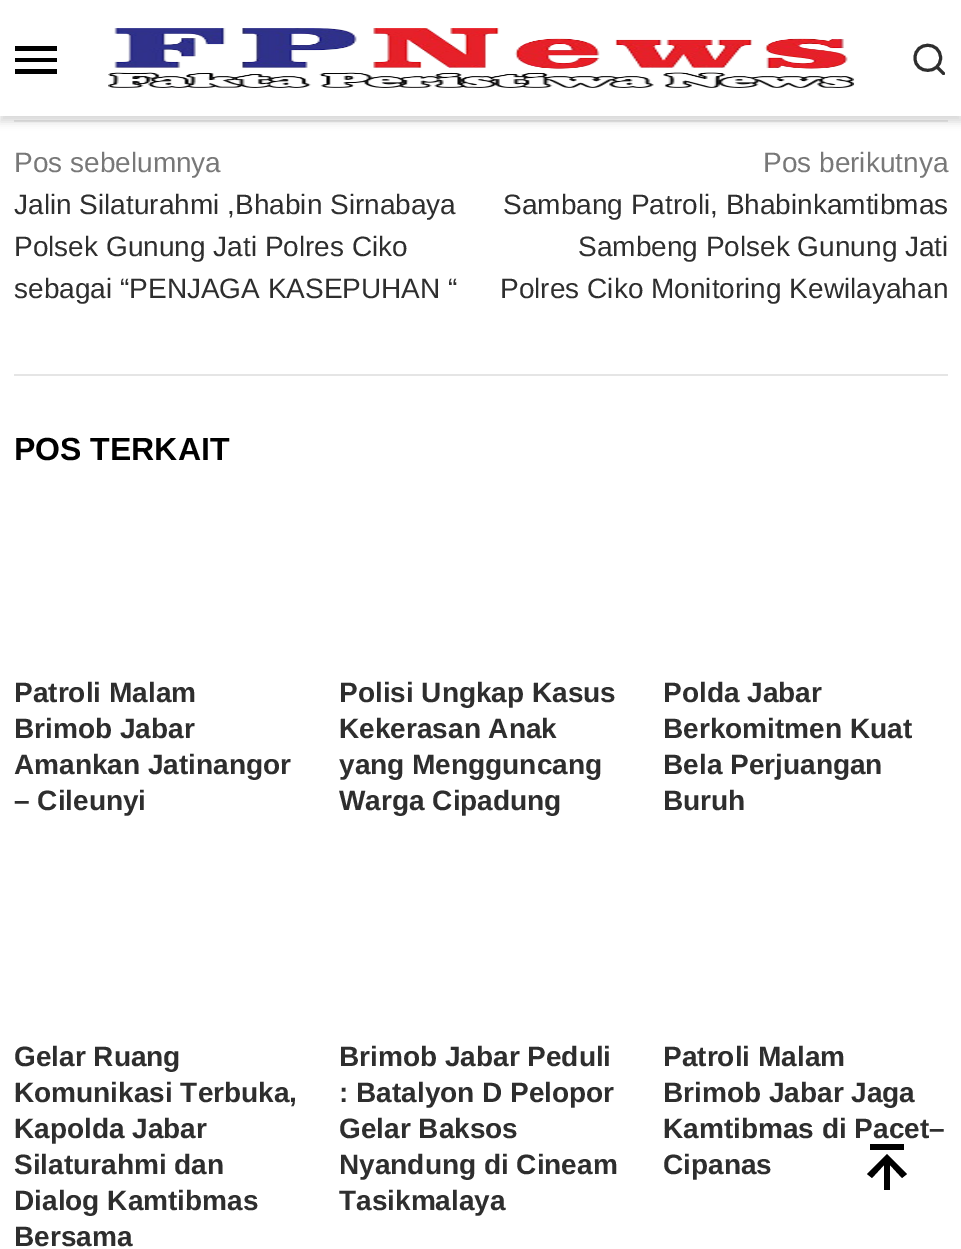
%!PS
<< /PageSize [961 1249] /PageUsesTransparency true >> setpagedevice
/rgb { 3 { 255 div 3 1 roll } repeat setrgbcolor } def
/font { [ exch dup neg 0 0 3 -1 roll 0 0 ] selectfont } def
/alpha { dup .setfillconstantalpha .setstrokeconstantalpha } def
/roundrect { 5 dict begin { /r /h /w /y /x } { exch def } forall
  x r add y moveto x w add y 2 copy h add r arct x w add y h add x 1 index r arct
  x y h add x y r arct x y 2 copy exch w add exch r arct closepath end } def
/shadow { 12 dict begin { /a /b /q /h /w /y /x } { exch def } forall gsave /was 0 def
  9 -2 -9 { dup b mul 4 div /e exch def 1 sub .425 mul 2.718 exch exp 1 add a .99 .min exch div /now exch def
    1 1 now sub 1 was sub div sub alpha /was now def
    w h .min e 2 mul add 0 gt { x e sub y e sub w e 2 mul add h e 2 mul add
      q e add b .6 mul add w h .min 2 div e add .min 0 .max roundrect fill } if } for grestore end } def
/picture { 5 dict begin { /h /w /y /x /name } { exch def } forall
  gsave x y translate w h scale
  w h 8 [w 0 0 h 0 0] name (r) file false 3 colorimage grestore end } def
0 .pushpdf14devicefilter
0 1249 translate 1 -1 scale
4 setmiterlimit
255 255 255 rgb
0 0 961 1249 rectfill
233 233 233 rgb
14 120 934 2 rectfill
52 52 52 rgb
0 6 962 116 0 4 0.18 shadow
255 255 255 rgb
0 0 961 116 rectfill
0 0 0 rgb
15 46 moveto 57 46 lineto 57 51 lineto 15 51 lineto 15 46 lineto 15 58 moveto 57 58 lineto 57 62 lineto 15 62 lineto 15 58 lineto 15 69 moveto 57 69 lineto 57 74 lineto 15 74 lineto closepath fill
(img/1.rgb) 108 28 747 60 picture
46 46 46 rgb
3 setlinewidth
1 setlinecap
943.5 73.5 moveto 937 67 lineto 940.5 58 moveto 940.5 74.5 915 74.5 915 58 curveto 915 41 940.5 41 940.5 58 curveto closepath stroke
229 229 229 rgb
14 374 934 2 rectfill
0 0 0 rgb
870 1144 moveto 904 1144 lineto 904 1150 lineto 870 1150 lineto closepath 872 1178 moveto 884 1165 lineto 884 1190 lineto 890 1190 lineto 890 1165 lineto 902 1178 lineto 907 1174 lineto 887 1154 lineto 867 1174 lineto closepath fill
/LiberationSans-Regular 28 font
120 120 120 rgb
14 172 moveto (Pos sebelumnya) show
46 46 46 rgb
[
  [(Jalin Silaturahmi ,Bhabin Sirnabaya) 14 214]
  [(Polsek Gunung Jati Polres Ciko) 14 256]
  [(sebagai “PENJAGA KASEPUHAN “) 14 298]
] { aload pop moveto show } forall
120 120 120 rgb
763 172 moveto (Pos berikutnya) show
46 46 46 rgb
[
  [(Sambang Patroli, Bhabinkamtibmas) 503 214]
  [(Sambeng Polsek Gunung Jati) 578 256]
  [(Polres Ciko Monitoring Kewilayahan) 500 298]
] { aload pop moveto show } forall
/LiberationSans-Bold 32 font
0 0 0 rgb
14 460 moveto (POS TERKAIT) show
/LiberationSans-Bold 28 font
46 46 46 rgb
[
  [(Patroli Malam) 14 702]
  [(Brimob Jabar) 14 738]
  [(Amankan Jatinangor) 14 774]
  [(– Cileunyi) 14 810]
  [(Polisi Ungkap Kasus) 339 702]
  [(Kekerasan Anak) 339 738]
  [(yang Mengguncang) 339 774]
  [(Warga Cipadung) 339 810]
  [(Polda Jabar) 663 702]
  [(Berkomitmen Kuat) 663 738]
  [(Bela Perjuangan) 663 774]
  [(Buruh) 663 810]
  [(Gelar Ruang) 14 1066]
  [(Komunikasi Terbuka,) 14 1102]
  [(Kapolda Jabar) 14 1138]
  [(Silaturahmi dan) 14 1174]
  [(Dialog Kamtibmas) 14 1210]
  [(Bersama) 14 1246]
  [(Brimob Jabar Peduli) 339 1066]
  [(: Batalyon D Pelopor) 339 1102]
  [(Gelar Baksos) 339 1138]
  [(Nyandung di Cineam) 339 1174]
  [(Tasikmalaya) 339 1210]
  [(Patroli Malam) 663 1066]
  [(Brimob Jabar Jaga) 663 1102]
  [(Kamtibmas di Pacet–) 663 1138]
  [(Cipanas) 663 1174]
] { aload pop moveto show } forall
.poppdf14devicefilter showpage
